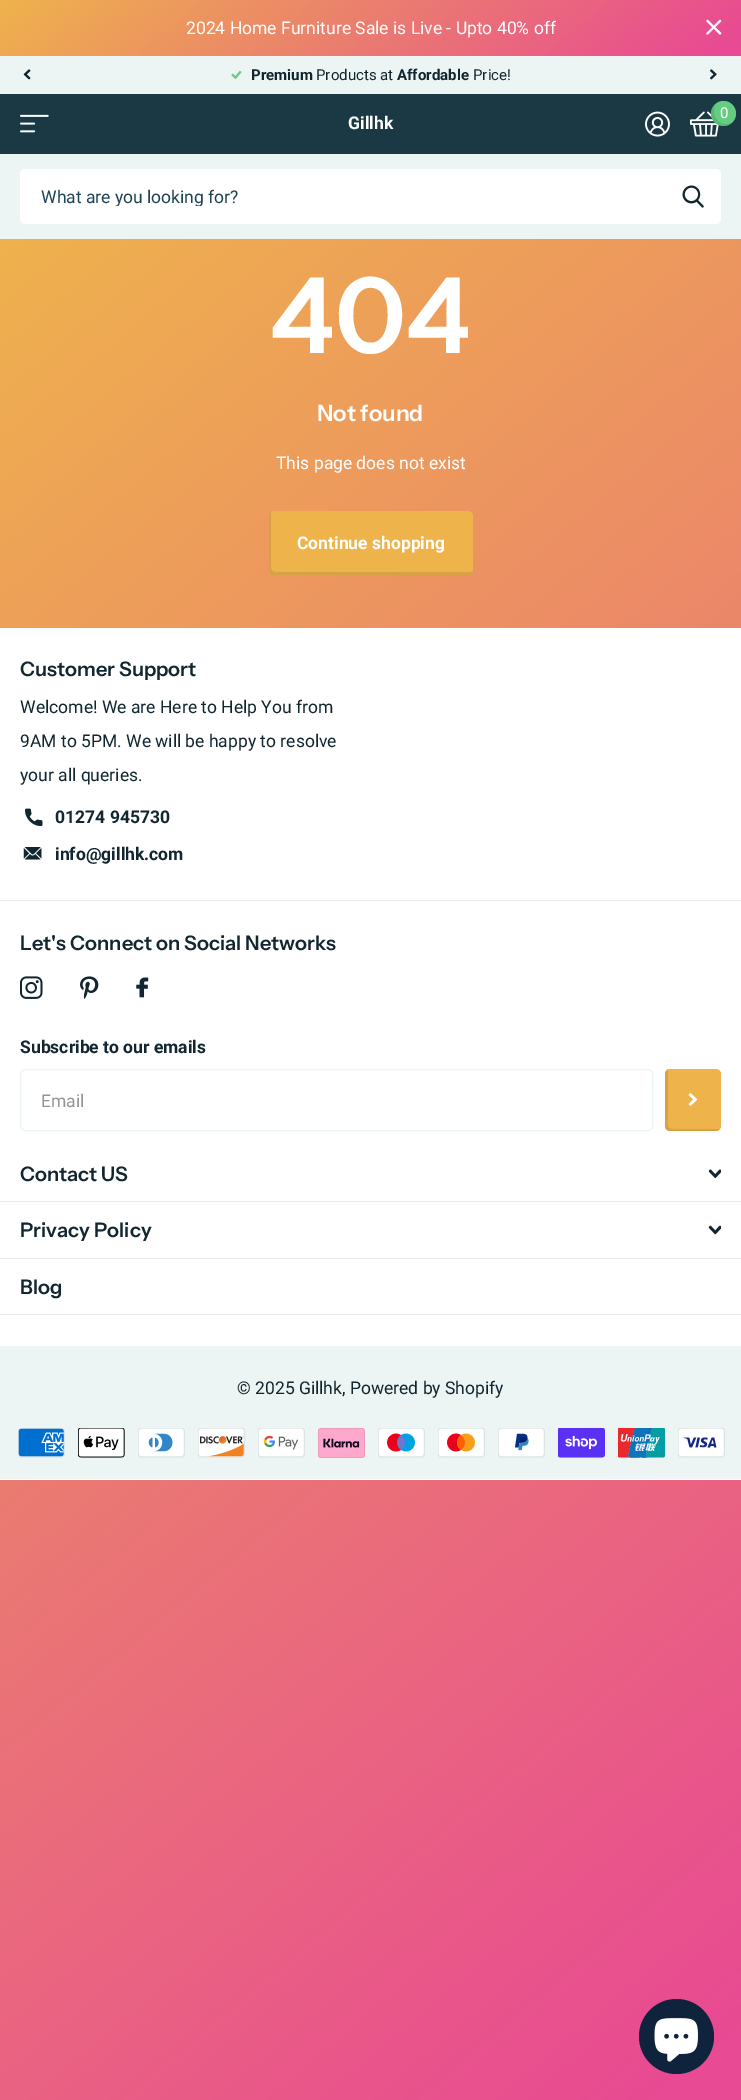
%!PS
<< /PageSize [741 2100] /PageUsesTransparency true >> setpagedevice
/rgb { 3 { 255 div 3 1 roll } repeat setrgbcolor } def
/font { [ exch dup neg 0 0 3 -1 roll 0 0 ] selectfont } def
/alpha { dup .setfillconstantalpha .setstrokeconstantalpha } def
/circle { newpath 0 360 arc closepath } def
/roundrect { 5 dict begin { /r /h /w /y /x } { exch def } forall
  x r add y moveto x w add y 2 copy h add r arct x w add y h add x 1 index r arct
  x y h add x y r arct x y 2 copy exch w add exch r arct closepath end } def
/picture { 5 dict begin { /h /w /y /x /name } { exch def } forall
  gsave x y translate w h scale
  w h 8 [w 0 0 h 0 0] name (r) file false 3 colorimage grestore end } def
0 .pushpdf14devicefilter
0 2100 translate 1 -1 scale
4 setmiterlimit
255 255 255 rgb
0 0 741 2100 rectfill
gsave 0 0 moveto 741 0 lineto 741 56 lineto 0 56 lineto closepath clip newpath
<< /ShadingType 2 /ColorSpace /DeviceRGB /Coords [538 227 204 -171] /Extend [true true] /Function << /FunctionType 3 /Domain [0 1] /Functions [<< /FunctionType 2 /Domain [0 1] /C0 [0.91 0.29 0.576] /C1 [0.91 0.29 0.576] /N 1 >> << /FunctionType 2 /Domain [0 1] /C0 [0.91 0.29 0.576] /C1 [0.937 0.702 0.298] /N 1 >>] /Bounds [0.04] /Encode [0 1 0 1] >> >> shfill grestore
(img/1.rgb) 706 19 16 16 picture
237 244 244 rgb
0 56 741 38 rectfill
(img/2.rgb) 23 69 8 11 picture
(img/3.rgb) 231 70 11 10 picture
(img/4.rgb) 710 69 7 11 picture
26 57 69 rgb
0 94 741 60 rectfill
(img/5.rgb) 20 114 29 19 picture
(img/6.rgb) 645 111 25 26 picture
(img/7.rgb) 690 111 29 26 picture
100 205 130 rgb
723.5 113.5 12.5 circle fill
0.1 alpha
0 0 0 rgb
732 123 moveto 730 123.5 728 124 726 124 curveto 714 124 711 109.5 717 102.5 curveto 715 104 713 106 712 108.5 curveto 707 121 722 131.5 732 123 curveto closepath fill
1 alpha
237 244 244 rgb
0 154 741 85 rectfill
255 255 255 rgb
20 169 701 55 5 roundrect fill
(img/8.rgb) 682 185 22 23 picture
gsave 0 239 moveto 741 239 lineto 741 2100 lineto 0 2100 lineto closepath clip newpath
<< /ShadingType 2 /ColorSpace /DeviceRGB /Coords [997 1916 -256 422] /Extend [true true] /Function << /FunctionType 3 /Domain [0 1] /Functions [<< /FunctionType 2 /Domain [0 1] /C0 [0.91 0.29 0.576] /C1 [0.91 0.29 0.576] /N 1 >> << /FunctionType 2 /Domain [0 1] /C0 [0.91 0.29 0.576] /C1 [0.937 0.702 0.298] /N 1 >>] /Bounds [0.04] /Encode [0 1 0 1] >> >> shfill grestore
239 179 76 rgb
269 511 204 64 5 roundrect fill
0.1 alpha
0 0 0 rgb
271 512 moveto 270 513 269 514 269 516 curveto 269 570 lineto 269 573 271 575 274 575 curveto 468 575 lineto 470 575 472 573 473 571 curveto 470 572 lineto 276 572 lineto 273 572 271 570 271 568 curveto 271 514 lineto closepath fill
1 alpha
255 255 255 rgb
0 628 741 852 rectfill
(img/9.rgb) 25 808 18 19 picture
(img/10.rgb) 23 847 19 13 picture
231 233 234 rgb
0 900 741 1 rectfill
(img/11.rgb) 20 976 23 23 picture
(img/12.rgb) 80 976 19 23 picture
(img/13.rgb) 136 977 13 21 picture
237 244 244 rgb
20.5 1069.5 632 61 4.5 roundrect stroke
239 179 76 rgb
665 1069 56 62 5 roundrect fill
0.1 alpha
0 0 0 rgb
668 1069 moveto 666 1070 665 1072 665 1074 curveto 665 1126 lineto 665 1129 667 1131 670 1131 curveto 716 1131 lineto 718 1131 719 1130 720 1129 curveto 688 1129 lineto 663 1129 668 1132 668 1106 curveto closepath fill
1 alpha
(img/14.rgb) 688 1093 10 13 picture
(img/15.rgb) 708 1169 13 9 picture
231 233 234 rgb
0 1201 741 1 rectfill
(img/16.rgb) 708 1225 13 10 picture
[
  [0 1258 741 1 231 233 234]
  [0 1314 741 1 231 233 234]
  [0 1346 741 133 237 244 244]
] { aload pop rgb rectfill } forall
(img/17.rgb) 18 1428 47 30 picture
(img/18.rgb) 78 1428 47 30 picture
(img/19.rgb) 138 1428 47 30 picture
(img/20.rgb) 198 1428 47 30 picture
(img/21.rgb) 258 1428 47 30 picture
(img/22.rgb) 318 1428 47 30 picture
(img/23.rgb) 378 1428 47 30 picture
(img/24.rgb) 438 1428 47 30 picture
(img/25.rgb) 498 1428 47 30 picture
(img/26.rgb) 558 1428 47 30 picture
(img/27.rgb) 618 1428 47 30 picture
(img/28.rgb) 678 1428 47 30 picture
15 36 60 rgb
676.5 2036.5 37.5 circle fill
(img/29.rgb) 654 2018 44 44 picture
/Roboto-Regular 17.5 font
255 255 255 rgb
186 34 moveto (2024 Home Furniture Sale is Live - Upto 40% off) show
/Roboto-Bold 15 font
18 38 47 rgb
251 80 moveto (Premium) show
/Roboto-Regular 15 font
316 80 moveto (Products at) show
/Roboto-Bold 15 font
397 80 moveto (Affordable) show
/Roboto-Regular 15 font
473 80 moveto (Price!) show
/Roboto-Bold 17.5 font
255 255 255 rgb
348 129 moveto (Gillhk) show
/Roboto-Regular 15 font
720 118 moveto (0) show
gsave
41 186 623 20 rectclip
/Roboto-Regular 17.5 font
32 68 84 rgb
41 203 moveto (What are you looking for?) show
grestore
/InstrumentSans-SemiBold 105 font
270 353 moveto (404) show
/InstrumentSans-SemiBold 22.5 font
317 421 moveto (Not found) show
/Roboto-Regular 17.5 font
276 469 moveto (This page does not exist) show
/Roboto-Bold 17.5 font
297 549 moveto (Continue shopping) show
/InstrumentSans-SemiBold 20 font
18 38 47 rgb
20 676 moveto (Customer Support) show
/Roboto-Regular 17.5 font
[
  [(Welcome! We are Here to Help You from) 20 713]
  [(9AM to 5PM. We will be happy to resolve) 20 747]
  [(your all queries.) 20 781]
] { aload pop moveto show } forall
/Roboto-Bold 17.5 font
55 823 moveto (01274 945730) show
55 860 moveto (info@gillhk.com) show
/InstrumentSans-SemiBold 20 font
20 950 moveto (Let's Connect on Social Networks) show
/Roboto-Bold 17.5 font
20 1053 moveto (Subscribe to our emails) show
/Roboto-Regular 17.5 font
149 149 149 rgb
41 1107 moveto (Email) show
/InstrumentSans-SemiBold 20 font
18 38 47 rgb
[
  [(Contact US) 20 1181]
  [(Privacy Policy) 20 1237]
  [(Blog) 20 1294]
] { aload pop moveto show } forall
/Roboto-Regular 17.5 font
237 1394 moveto (© 2025 Gillhk, Powered by Shopify) show
.poppdf14devicefilter showpage
